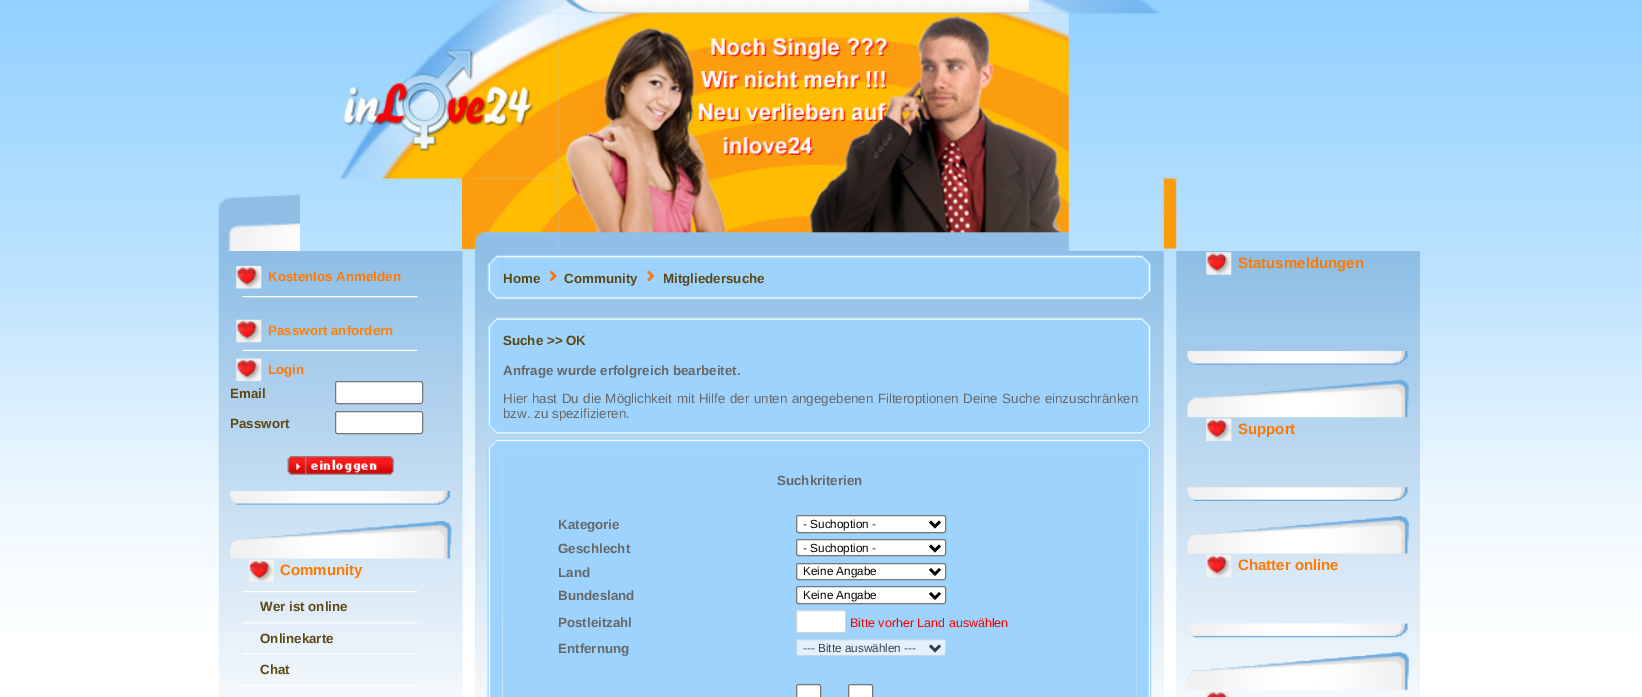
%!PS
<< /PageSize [1642 697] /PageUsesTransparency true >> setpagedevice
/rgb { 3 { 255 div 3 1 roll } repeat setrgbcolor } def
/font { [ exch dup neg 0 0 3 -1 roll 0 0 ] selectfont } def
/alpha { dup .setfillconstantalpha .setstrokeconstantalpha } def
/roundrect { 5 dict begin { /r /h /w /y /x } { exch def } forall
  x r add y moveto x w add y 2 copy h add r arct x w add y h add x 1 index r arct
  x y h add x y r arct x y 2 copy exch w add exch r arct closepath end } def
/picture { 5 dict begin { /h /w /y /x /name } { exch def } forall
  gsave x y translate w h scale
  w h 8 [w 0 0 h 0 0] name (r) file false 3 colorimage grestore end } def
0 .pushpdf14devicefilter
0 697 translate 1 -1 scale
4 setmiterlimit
255 255 255 rgb
0 0 1642 697 rectfill
(img/1.rgb) 0 0 1642 630 picture
(img/2.rgb) 481 0 680 14 picture
(img/3.rgb) 541 0 57 14 picture
(img/4.rgb) 597 0 432 14 picture
252 157 15 rgb
462 178 13 71 rectfill
(img/8.rgb) 475 178 84 55 picture
(img/5.rgb) 340 13 219 166 picture
(img/10.rgb) 475 232 84 19 picture
(img/6.rgb) 558 13 511 238 picture
(img/7.rgb) 218 194 82 57 picture
(img/9.rgb) 1163 178 14 71 picture
(img/11.rgb) 218 251 245 446 picture
(img/12.rgb) 236 266 26 23 picture
(img/13.rgb) 242 296 176 2 picture
(img/14.rgb) 236 319 26 24 picture
(img/15.rgb) 242 349 176 2 picture
(img/16.rgb) 236 358 26 23 picture
255 255 255 rgb
335.5 381.5 87 22 2 roundrect gsave fill grestore
118 118 118 rgb
stroke
255 255 255 rgb
335.5 411.5 87 22 2 roundrect gsave fill grestore
118 118 118 rgb
stroke
(img/17.rgb) 287 456 107 19 picture
(img/18.rgb) 230 491 221 14 picture
(img/19.rgb) 230 521 222 38 picture
(img/20.rgb) 248 559 26 24 picture
(img/21.rgb) 242 591 176 2 picture
(img/22.rgb) 242 622 176 2 picture
(img/23.rgb) 242 653 176 2 picture
(img/24.rgb) 242 685 176 1 picture
(img/25.rgb) 475 251 689 446 picture
(img/27.rgb) 502 254 635 16 picture
(img/29.rgb) 487 269 16 16 picture
(img/26.rgb) 487 254 16 16 picture
(img/32.rgb) 1136 269 16 16 picture
(img/28.rgb) 1136 254 16 16 picture
157 211 252 rgb
503 270 633 15 rectfill
(img/30.rgb) 549 270 8 12 picture
(img/31.rgb) 647 270 7 12 picture
(img/34.rgb) 502 285 635 15 picture
(img/33.rgb) 487 284 16 16 picture
(img/35.rgb) 1136 284 16 16 picture
(img/37.rgb) 502 317 635 16 picture
(img/39.rgb) 487 332 16 88 picture
(img/36.rgb) 487 317 16 16 picture
(img/40.rgb) 1136 332 16 88 picture
(img/38.rgb) 1136 317 16 16 picture
503 333 633 87 rectfill
(img/42.rgb) 502 420 635 15 picture
(img/41.rgb) 487 419 16 16 picture
(img/43.rgb) 1136 419 16 16 picture
(img/45.rgb) 502 438 635 16 picture
(img/47.rgb) 487 453 16 244 picture
(img/44.rgb) 487 438 16 16 picture
(img/48.rgb) 1136 453 16 244 picture
(img/46.rgb) 1136 438 16 16 picture
503 454 633 243 rectfill
255 255 255 rgb
796.5 515.5 149 17 2 roundrect gsave fill grestore
118 118 118 rgb
stroke
0 0 0 rgb
2.5 setlinewidth
930 521.5 moveto 935 526.5 lineto 940 521.5 lineto stroke
255 255 255 rgb
796.5 539.5 149 16 2 roundrect gsave fill grestore
118 118 118 rgb
1 setlinewidth
stroke
0 0 0 rgb
2.5 setlinewidth
930 545.5 moveto 935 550.5 lineto 940 545.5 lineto stroke
255 255 255 rgb
796.5 563.5 149 16 2 roundrect gsave fill grestore
118 118 118 rgb
1 setlinewidth
stroke
0 0 0 rgb
2.5 setlinewidth
930 569 moveto 935 574 lineto 940 569 lineto stroke
255 255 255 rgb
796.5 586.5 149 17 2 roundrect gsave fill grestore
118 118 118 rgb
1 setlinewidth
stroke
0 0 0 rgb
2.5 setlinewidth
930 593 moveto 935 598 lineto 940 593 lineto stroke
255 255 255 rgb
796 610 50 23 2.5 roundrect fill
0.3 alpha
118 118 118 rgb
1 setlinewidth
796.5 610.5 49 22 2 roundrect stroke
1 alpha
226 242 254 rgb
796 639 150 17 2.5 roundrect fill
0.3 alpha
130 146 158 rgb
796.5 639.5 149 16 2 roundrect stroke
1 alpha
47 63 76 rgb
2.5 setlinewidth
930 645.5 moveto 935 650.5 lineto 940 645.5 lineto stroke
255 255 255 rgb
796.5 684.5 24 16 2 roundrect gsave fill grestore
118 118 118 rgb
1 setlinewidth
stroke
255 255 255 rgb
848.5 684.5 24 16 2 roundrect gsave fill grestore
118 118 118 rgb
stroke
(img/49.rgb) 1176 251 244 446 picture
(img/50.rgb) 1206 252 26 23 picture
(img/51.rgb) 1187 351 221 14 picture
(img/52.rgb) 1187 379 222 39 picture
(img/53.rgb) 1206 418 26 23 picture
(img/54.rgb) 1187 487 221 14 picture
(img/55.rgb) 1187 516 222 38 picture
(img/56.rgb) 1206 554 26 24 picture
(img/57.rgb) 1187 623 221 15 picture
(img/58.rgb) 1187 652 222 38 picture
(img/59.rgb) 1206 691 25 6 picture
/LiberationSans-Bold 13.35 font
255 120 0 rgb
268 281 moveto (Kostenlos Anmelden) show
255 128 0 rgb
268 335 moveto (Passwort anfordern) show
255 120 0 rgb
268 374 moveto (Login) show
91 71 17 rgb
230 398 moveto (Email) show
230 428 moveto (Passwort) show
/LiberationSans-Bold 15 font
255 120 0 rgb
280 575 moveto (Community) show
/LiberationSans-Bold 13.35 font
91 71 17 rgb
[
  [(Wer ist online) 260 611]
  [(Onlinekarte) 260 643]
  [(Chat) 260 674]
  [(Home) 503 283]
  [(Community) 564 283]
  [(Mitgliedersuche) 663 283]
  [(Suche >> OK) 503 345]
] { aload pop moveto show } forall
102 102 102 rgb
503 375 moveto (Anfrage wurde erfolgreich bearbeitet.) show
/LiberationSans-Regular 13.35 font
503 403 moveto 0.75 0 32 (Hier hast Du die Möglichkeit mit Hilfe der unten angegebenen Filteroptionen Deine Suche einzuschränken) widthshow
503 418 moveto (bzw. zu spezifizieren.) show
/LiberationSans-Bold 13.35 font
777 485 moveto (Suchkriterien) show
558 529 moveto (Kategorie) show
/LiberationSans-Regular 11.75 font
0 0 0 rgb
803 528 moveto (- Suchoption -) show
/LiberationSans-Bold 13.35 font
102 102 102 rgb
558 553 moveto (Geschlecht) show
/LiberationSans-Regular 11.75 font
0 0 0 rgb
803 552 moveto (- Suchoption -) show
/LiberationSans-Bold 13.35 font
102 102 102 rgb
558 577 moveto (Land) show
/LiberationSans-Regular 11.75 font
0 0 0 rgb
803 575 moveto (Keine Angabe) show
/LiberationSans-Bold 13.35 font
102 102 102 rgb
558 600 moveto (Bundesland) show
/LiberationSans-Regular 11.75 font
0 0 0 rgb
803 599 moveto (Keine Angabe) show
/LiberationSans-Bold 13.35 font
102 102 102 rgb
558 627 moveto (Postleitzahl) show
/LiberationSans-Regular 12.5 font
255 0 0 rgb
850 627 moveto (Bitte vorher Land auswählen) show
/LiberationSans-Bold 13.35 font
102 102 102 rgb
558 653 moveto (Entfernung) show
/LiberationSans-Regular 11.75 font
47 63 76 rgb
803 652 moveto (--- Bitte auswählen ---) show
/LiberationSans-Bold 15 font
255 120 0 rgb
[
  [(Statusmeldungen) 1238 268]
  [(Support) 1238 434]
  [(Chatter online) 1238 570]
] { aload pop moveto show } forall
.poppdf14devicefilter showpage
